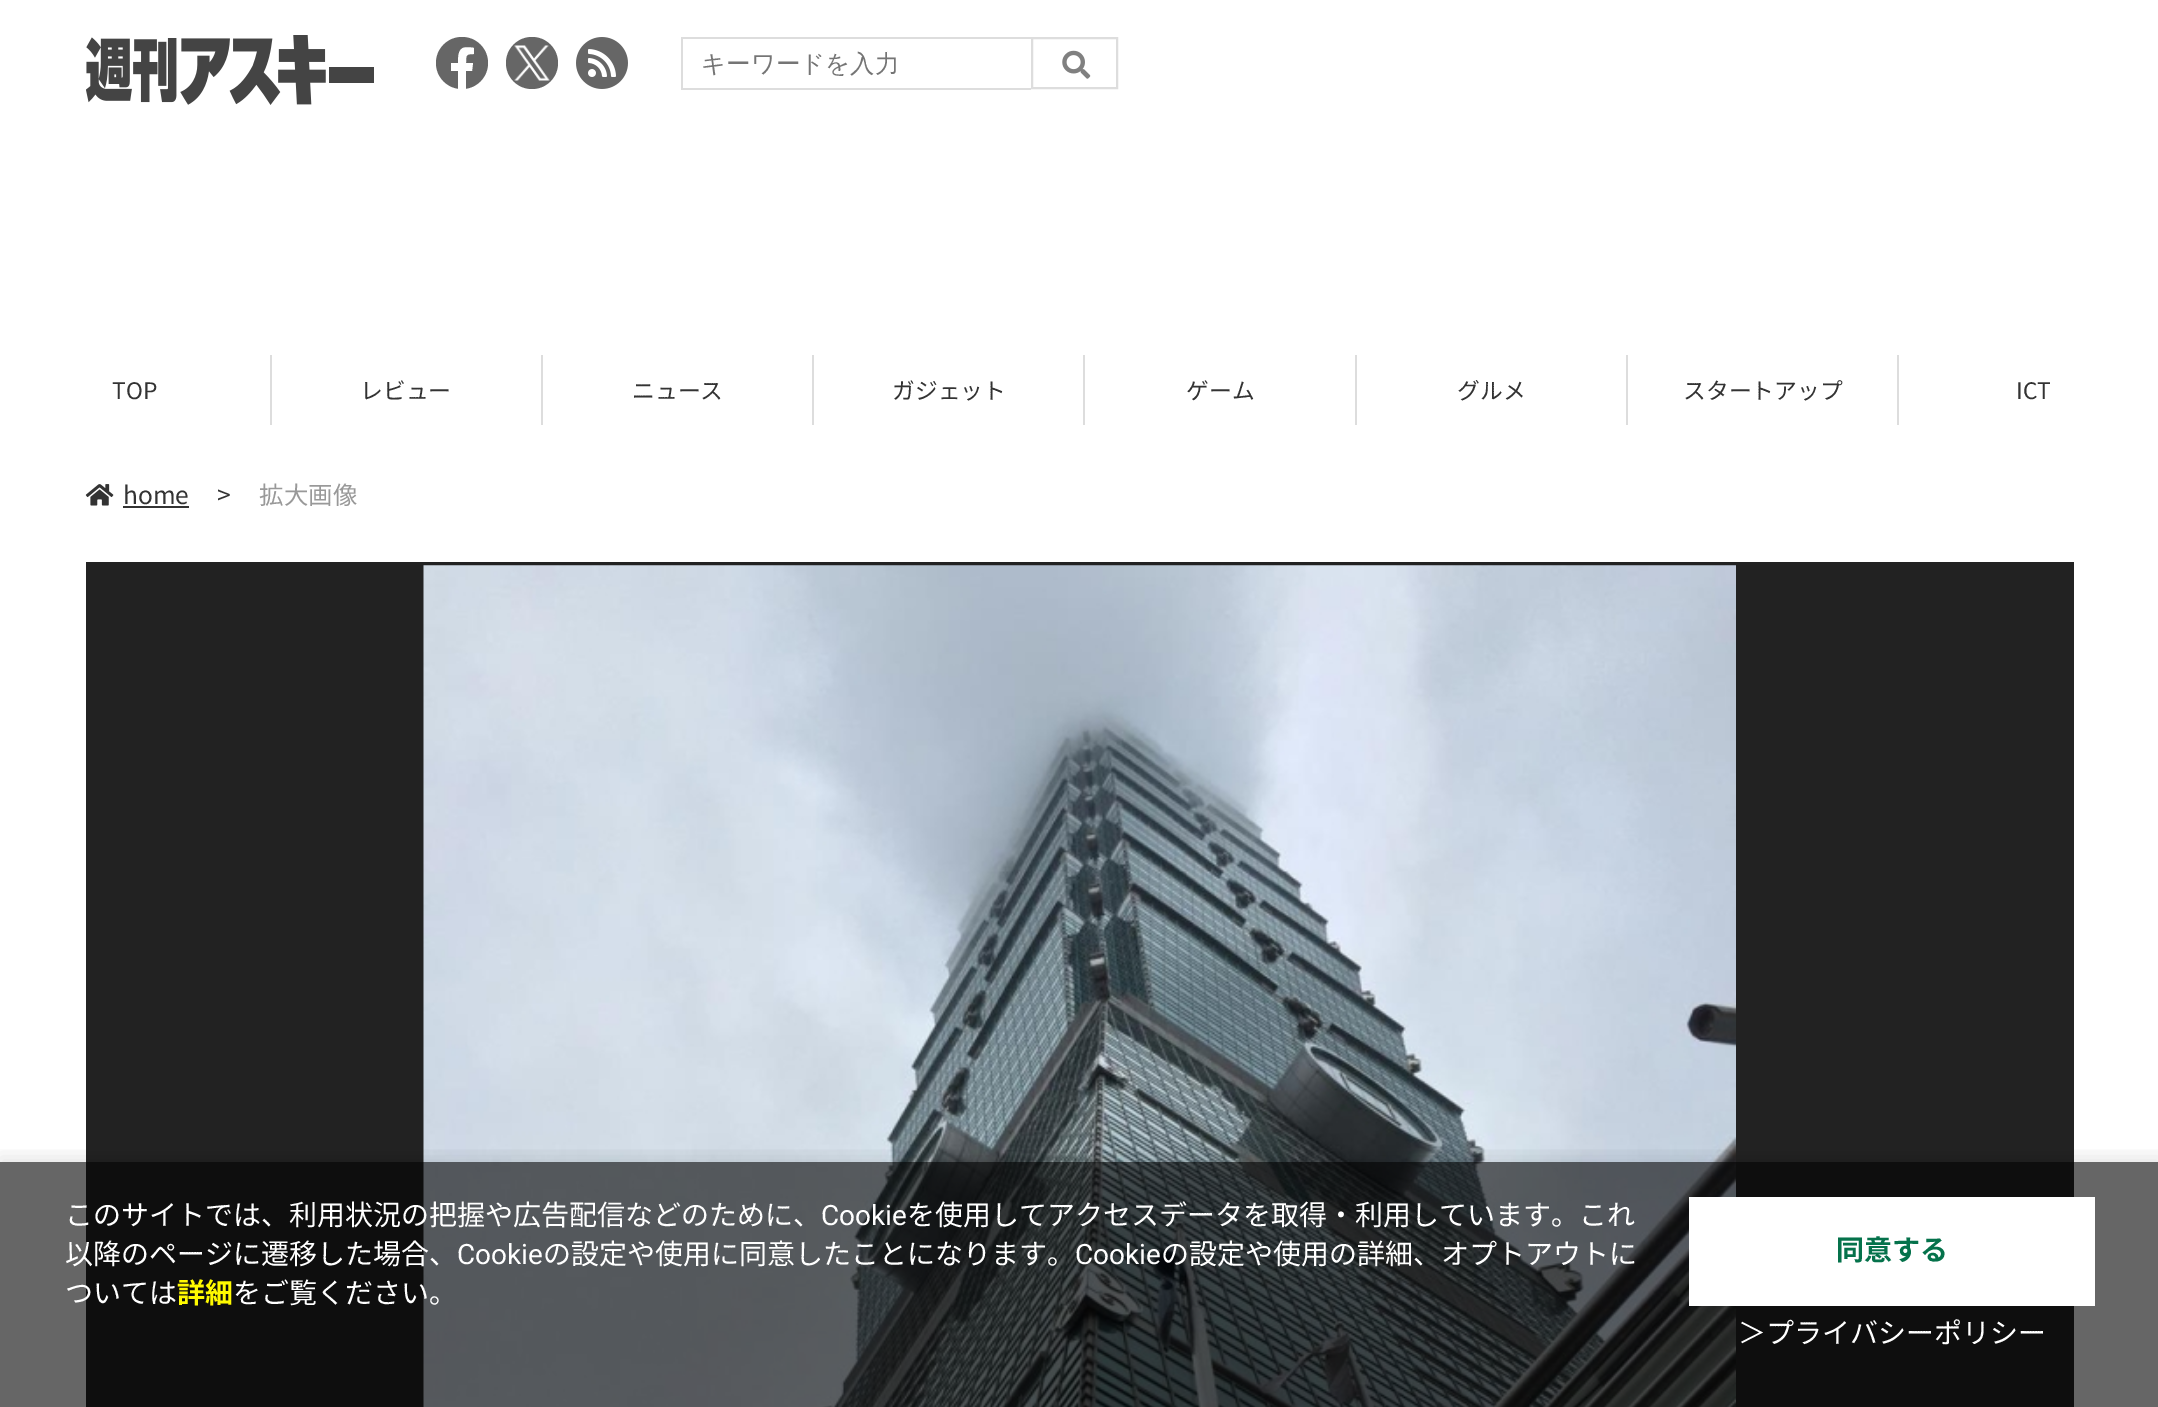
%!PS
<< /PageSize [2158 1407] /PageUsesTransparency true >> setpagedevice
/rgb { 3 { 255 div 3 1 roll } repeat setrgbcolor } def
/font { [ exch dup neg 0 0 3 -1 roll 0 0 ] selectfont } def
/alpha { dup .setfillconstantalpha .setstrokeconstantalpha } def
/circle { newpath 0 360 arc closepath } def
/roundrect { 5 dict begin { /r /h /w /y /x } { exch def } forall
  x r add y moveto x w add y 2 copy h add r arct x w add y h add x 1 index r arct
  x y h add x y r arct x y 2 copy exch w add exch r arct closepath end } def
/shadow { 12 dict begin { /a /b /q /h /w /y /x } { exch def } forall gsave /was 0 def
  9 -2 -9 { dup b mul 4 div /e exch def 1 sub .425 mul 2.718 exch exp 1 add a .99 .min exch div /now exch def
    1 1 now sub 1 was sub div sub alpha /was now def
    w h .min e 2 mul add 0 gt { x e sub y e sub w e 2 mul add h e 2 mul add
      q e add b .6 mul add w h .min 2 div e add .min 0 .max roundrect fill } if } for grestore end } def
/picture { 5 dict begin { /h /w /y /x /name } { exch def } forall
  gsave x y translate w h scale
  w h 8 [w 0 0 h 0 0] name (r) file false 3 colorimage grestore end } def
0 .pushpdf14devicefilter
0 1407 translate 1 -1 scale
4 setmiterlimit
255 255 255 rgb
0 0 2158 1407 rectfill
(img/1.rgb) 86 35 288 70 picture
102 102 102 rgb
462 63 26 circle fill
255 255 255 rgb
472 71 moveto 473 63 lineto 466 63 lineto 466 55 466 54 474 54 curveto 474 48 lineto 460 45 458 50 458 63 curveto 451 63 lineto 451 71 lineto 458 71 lineto 458 89 lineto 466 89 lineto 466 71 lineto closepath fill
102 102 102 rgb
532 63 26 circle fill
(img/2.rgb) 514 45 36 36 picture
(img/3.rgb) 576 37 52 52 picture
[
  [681 37 350 2 221 221 221]
  [681 88 350 2 221 221 221]
  [681 37 2 52 221 221 221]
] { aload pop rgb rectfill } forall
2 setlinewidth
1032 38 85 50 rectstroke
(img/4.rgb) 1062 50 29 29 picture
[
  [270 355 2 70 221 221 221]
  [541 355 2 70 221 221 221]
  [812 355 2 70 221 221 221]
  [1083 355 2 70 221 221 221]
  [1355 355 2 70 221 221 221]
  [1626 355 2 70 221 221 221]
  [1897 355 2 70 221 221 221]
] { aload pop rgb rectfill } forall
(img/5.rgb) 85 484 29 22 picture
51 51 51 rgb
123 506 66 2 rectfill
34 34 34 rgb
86 562 1988 845 rectfill
(img/6.rgb) 423 565 1313 842 picture
gsave
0 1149 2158 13 rectclip
0 0 0 rgb
0 1157 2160 245 0 9 0.1 shadow
grestore
0.6 alpha
0 0 0 rgb
0 1162 2158 245 rectfill
1 alpha
255 255 255 rgb
1689 1197 406 109 rectfill
/WenQuanYiZenHei-Medium 24.5 font
117 117 117 rgb
701 72 moveto (キーワードを入力) show
/NotoSansJP-Thin 22.75 font
51 51 51 rgb
[
  [(TOP) 112 399]
  [(レビュー) 360 399]
  [(ニュース) 632 399]
  [(ガジェット) 892 399]
  [(ゲーム) 1186 399]
  [(グルメ) 1457 399]
  [(スタートアップ) 1683 399]
  [(ICT) 2016 399]
] { aload pop moveto show } forall
/NotoSansJP-Thin 24.5 font
123 504 moveto (home) show
217 504 moveto (>) show
153 153 153 rgb
259 504 moveto (拡大画像) show
/NotoSansJP-Thin 28 font
255 255 255 rgb
65 1225 moveto (このサイトでは、利用状況の把握や広告配信などのために、) show
/Roboto-Regular 28 font
821 1225 moveto (Cookie) show
/NotoSansJP-Thin 28 font
907 1225 moveto (を使用してアクセスデータを取得・利用しています。これ) show
65 1264 moveto (以降のページに遷移した場合、) show
/Roboto-Regular 28 font
457 1264 moveto (Cookie) show
/NotoSansJP-Thin 28 font
543 1264 moveto (の設定や使用に同意したことになります。) show
/Roboto-Regular 28 font
1075 1264 moveto (Cookie) show
/NotoSansJP-Thin 28 font
1161 1264 moveto (の設定や使用の詳細、オプトアウトに) show
65 1303 moveto (ついては) show
/NotoSansJP-Bold 28 font
255 250 0 rgb
177 1303 moveto (詳細) show
/NotoSansJP-Thin 28 font
255 255 255 rgb
233 1303 moveto (をご覧ください。) show
/NotoSansJP-Bold 28 font
5 114 75 rgb
1836 1260 moveto (同意する) show
/NotoSansJP-Thin 28 font
255 255 255 rgb
1738 1343 moveto (＞プライバシーポリシー) show
.poppdf14devicefilter showpage
